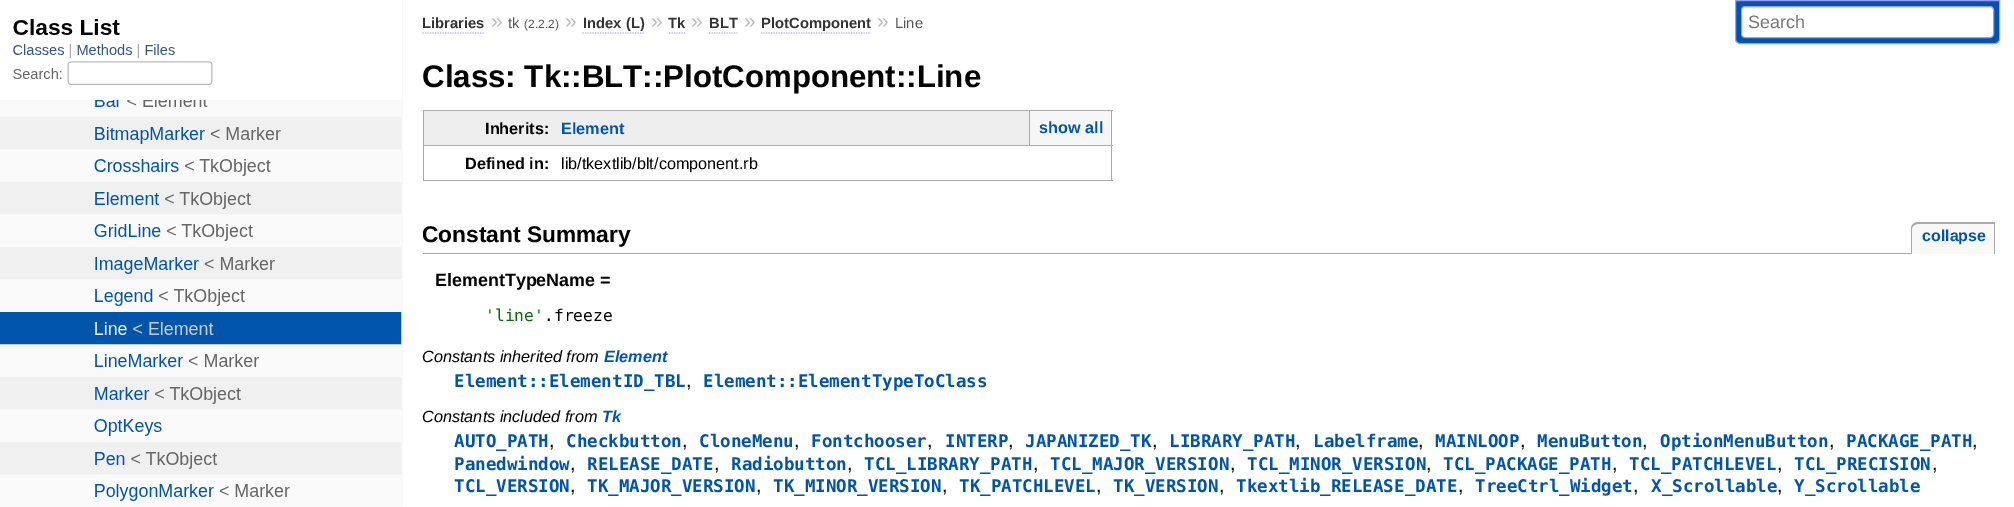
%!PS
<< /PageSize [2014 507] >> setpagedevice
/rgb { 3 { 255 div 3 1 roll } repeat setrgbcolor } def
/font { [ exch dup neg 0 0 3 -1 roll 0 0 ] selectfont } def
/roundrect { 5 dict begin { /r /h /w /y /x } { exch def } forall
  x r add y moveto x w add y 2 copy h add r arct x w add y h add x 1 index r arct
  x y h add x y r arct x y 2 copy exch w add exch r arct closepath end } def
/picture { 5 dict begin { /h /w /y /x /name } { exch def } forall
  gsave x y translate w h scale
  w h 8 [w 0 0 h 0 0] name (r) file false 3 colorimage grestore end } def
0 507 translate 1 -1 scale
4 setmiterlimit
255 255 255 rgb
0 0 2014 507 rectfill
238 238 238 rgb
1.2 setlinewidth
[1.25 1.25] 0 setdash
402 0 moveto 402 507.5 lineto stroke
(img/1.rgb) 0 0 402 507 picture
187 187 221 rgb
422.5 33 moveto 485 33 lineto stroke
582.5 33 moveto 645 33 lineto stroke
669 33 moveto 685 33 lineto stroke
709 33 moveto 737.5 33 lineto stroke
761 33 moveto 871 33 lineto stroke
0 85 170 rgb
1735.5 0.5 moveto 1999.5 0.5 lineto 1999.5 39 lineto 1999.5 41.5 1997.5 43.5 1995 43.5 curveto 1740 43.5 lineto 1737.5 43.5 1735.5 41.5 1735.5 39 curveto closepath gsave fill grestore
153 153 255 rgb
1 setlinewidth
[] 0 setdash
stroke
255 255 255 rgb
1741.5 6.5 252 31 3.5 roundrect gsave fill grestore
153 153 255 rgb
stroke
[
  [424 111 605 34 238 238 238]
  [423 110 690 1 170 170 170]
  [423 110 1 35 170 170 170]
  [423 145 690 1 170 170 170]
  [1111 110 1 71 170 170 170]
  [1030 111 81 34 246 246 246]
  [1029 111 1 34 170 170 170]
  [423 180 138 1 170 170 170]
  [423 145 1 36 170 170 170]
  [561 180 552 1 170 170 170]
  [423 253 1488 1 170 170 170]
] { aload pop rgb rectfill } forall
248 248 248 rgb
1917 223 moveto 1995 223 lineto 1995 254 lineto 1911 254 lineto 1911 229 lineto 1911 225.5 1913.5 223 1917 223 curveto closepath fill
170 170 170 rgb
1918 222 moveto 1995 222 lineto 1995 254 lineto 1911 254 lineto 1911 229 lineto 1911 225 1914 222 1918 222 curveto closepath 1918 224 moveto 1994 224 lineto 1994 254 lineto 1912 254 lineto 1912 229 lineto 1912 226 1915 224 1918 224 curveto closepath eofill
/LiberationSans-Bold 14.75 font
51 51 51 rgb
422 28 moveto (Libraries) show
/LiberationSans-Regular 21 font
187 187 187 rgb
491 28 moveto (») show
/LiberationSans-Regular 14.75 font
85 85 85 rgb
508 28 moveto (tk) show
/LiberationSans-Regular 12 font
524 28 moveto (\(2.2.2\)) show
/LiberationSans-Regular 21 font
187 187 187 rgb
565 28 moveto (») show
/LiberationSans-Bold 14.75 font
51 51 51 rgb
583 28 moveto (Index \(L\)) show
/LiberationSans-Regular 21 font
187 187 187 rgb
651 28 moveto (») show
/LiberationSans-Bold 14.75 font
51 51 51 rgb
668 28 moveto (Tk) show
/LiberationSans-Regular 21 font
187 187 187 rgb
691 28 moveto (») show
/LiberationSans-Bold 14.75 font
51 51 51 rgb
709 28 moveto (BLT) show
/LiberationSans-Regular 21 font
187 187 187 rgb
744 28 moveto (») show
/LiberationSans-Bold 14.75 font
51 51 51 rgb
761 28 moveto (PlotComponent) show
/LiberationSans-Regular 21 font
187 187 187 rgb
877 28 moveto (») show
/LiberationSans-Regular 14.75 font
85 85 85 rgb
895 28 moveto (Line) show
/LiberationSans-Regular 17.9 font
117 117 117 rgb
1748 28 moveto (Search) show
/LiberationSans-Bold 31.25 font
0 0 0 rgb
422 87 moveto (Class: Tk::BLT::PlotComponent::Line) show
/LiberationSans-Bold 16.25 font
485 134 moveto (Inherits:) show
0 85 170 rgb
561 134 moveto (Element) show
1039 133 moveto (show all) show
0 0 0 rgb
465 169 moveto (Defined in:) show
/LiberationSans-Regular 16.25 font
561 169 moveto (lib/tkextlib/blt/component.rb) show
/LiberationSans-Bold 22.75 font
422 242 moveto (Constant Summary) show
/LiberationSans-Bold 16 font
0 85 170 rgb
1922 241 moveto (collapse) show
/LiberationSans-Bold 17.9 font
0 0 0 rgb
435 286 moveto (ElementTypeName =) show
/DejaVuSansMono-Regular 16.25 font
3 106 7 rgb
485 321 moveto ('line') show
0 0 0 rgb
544 321 moveto (.freeze) show
/LiberationSans-Italic 16.25 font
422 362 moveto (Constants inherited from) show
/LiberationSans-BoldItalic 16.25 font
0 85 170 rgb
604 362 moveto (Element) show
/DejaVuSansMono-Bold 17.5 font
454 387 moveto (Element::ElementID_TBL) show
/LiberationSans-Regular 20 font
0 0 0 rgb
686 387 moveto (,) show
/DejaVuSansMono-Bold 17.5 font
0 85 170 rgb
703 387 moveto (Element::ElementTypeToClass) show
/LiberationSans-Italic 16.25 font
0 0 0 rgb
422 422 moveto (Constants included from) show
/LiberationSans-BoldItalic 16.25 font
0 85 170 rgb
602 422 moveto (Tk) show
/DejaVuSansMono-Bold 17.5 font
454 447 moveto (AUTO_PATH) show
/LiberationSans-Regular 20 font
0 0 0 rgb
549 447 moveto (,) show
/DejaVuSansMono-Bold 17.5 font
0 85 170 rgb
566 447 moveto (Checkbutton) show
/LiberationSans-Regular 20 font
0 0 0 rgb
682 447 moveto (,) show
/DejaVuSansMono-Bold 17.5 font
0 85 170 rgb
699 447 moveto (CloneMenu) show
/LiberationSans-Regular 20 font
0 0 0 rgb
794 447 moveto (,) show
/DejaVuSansMono-Bold 17.5 font
0 85 170 rgb
811 447 moveto (Fontchooser) show
/LiberationSans-Regular 20 font
0 0 0 rgb
927 447 moveto (,) show
/DejaVuSansMono-Bold 17.5 font
0 85 170 rgb
945 447 moveto (INTERP) show
/LiberationSans-Regular 20 font
0 0 0 rgb
1008 447 moveto (,) show
/DejaVuSansMono-Bold 17.5 font
0 85 170 rgb
1025 447 moveto (JAPANIZED_TK) show
/LiberationSans-Regular 20 font
0 0 0 rgb
1152 447 moveto (,) show
/DejaVuSansMono-Bold 17.5 font
0 85 170 rgb
1169 447 moveto (LIBRARY_PATH) show
/LiberationSans-Regular 20 font
0 0 0 rgb
1295 447 moveto (,) show
/DejaVuSansMono-Bold 17.5 font
0 85 170 rgb
1313 447 moveto (Labelframe) show
/LiberationSans-Regular 20 font
0 0 0 rgb
1418 447 moveto (,) show
/DejaVuSansMono-Bold 17.5 font
0 85 170 rgb
1435 447 moveto (MAINLOOP) show
/LiberationSans-Regular 20 font
0 0 0 rgb
1520 447 moveto (,) show
/DejaVuSansMono-Bold 17.5 font
0 85 170 rgb
1537 447 moveto (MenuButton) show
/LiberationSans-Regular 20 font
0 0 0 rgb
1642 447 moveto (,) show
/DejaVuSansMono-Bold 17.5 font
0 85 170 rgb
1660 447 moveto (OptionMenuButton) show
/LiberationSans-Regular 20 font
0 0 0 rgb
1829 447 moveto (,) show
/DejaVuSansMono-Bold 17.5 font
0 85 170 rgb
1846 447 moveto (PACKAGE_PATH) show
/LiberationSans-Regular 20 font
0 0 0 rgb
1972 447 moveto (,) show
/DejaVuSansMono-Bold 17.5 font
0 85 170 rgb
454 470 moveto (Panedwindow) show
/LiberationSans-Regular 20 font
0 0 0 rgb
570 470 moveto (,) show
/DejaVuSansMono-Bold 17.5 font
0 85 170 rgb
587 470 moveto (RELEASE_DATE) show
/LiberationSans-Regular 20 font
0 0 0 rgb
714 470 moveto (,) show
/DejaVuSansMono-Bold 17.5 font
0 85 170 rgb
731 470 moveto (Radiobutton) show
/LiberationSans-Regular 20 font
0 0 0 rgb
847 470 moveto (,) show
/DejaVuSansMono-Bold 17.5 font
0 85 170 rgb
864 470 moveto (TCL_LIBRARY_PATH) show
/LiberationSans-Regular 20 font
0 0 0 rgb
1033 470 moveto (,) show
/DejaVuSansMono-Bold 17.5 font
0 85 170 rgb
1050 470 moveto (TCL_MAJOR_VERSION) show
/LiberationSans-Regular 20 font
0 0 0 rgb
1230 470 moveto (,) show
/DejaVuSansMono-Bold 17.5 font
0 85 170 rgb
1247 470 moveto (TCL_MINOR_VERSION) show
/LiberationSans-Regular 20 font
0 0 0 rgb
1426 470 moveto (,) show
/DejaVuSansMono-Bold 17.5 font
0 85 170 rgb
1443 470 moveto (TCL_PACKAGE_PATH) show
/LiberationSans-Regular 20 font
0 0 0 rgb
1612 470 moveto (,) show
/DejaVuSansMono-Bold 17.5 font
0 85 170 rgb
1629 470 moveto (TCL_PATCHLEVEL) show
/LiberationSans-Regular 20 font
0 0 0 rgb
1777 470 moveto (,) show
/DejaVuSansMono-Bold 17.5 font
0 85 170 rgb
1794 470 moveto (TCL_PRECISION) show
/LiberationSans-Regular 20 font
0 0 0 rgb
1932 470 moveto (,) show
/DejaVuSansMono-Bold 17.5 font
0 85 170 rgb
454 492 moveto (TCL_VERSION) show
/LiberationSans-Regular 20 font
0 0 0 rgb
570 492 moveto (,) show
/DejaVuSansMono-Bold 17.5 font
0 85 170 rgb
587 492 moveto (TK_MAJOR_VERSION) show
/LiberationSans-Regular 20 font
0 0 0 rgb
756 492 moveto (,) show
/DejaVuSansMono-Bold 17.5 font
0 85 170 rgb
773 492 moveto (TK_MINOR_VERSION) show
/LiberationSans-Regular 20 font
0 0 0 rgb
942 492 moveto (,) show
/DejaVuSansMono-Bold 17.5 font
0 85 170 rgb
959 492 moveto (TK_PATCHLEVEL) show
/LiberationSans-Regular 20 font
0 0 0 rgb
1096 492 moveto (,) show
/DejaVuSansMono-Bold 17.5 font
0 85 170 rgb
1113 492 moveto (TK_VERSION) show
/LiberationSans-Regular 20 font
0 0 0 rgb
1219 492 moveto (,) show
/DejaVuSansMono-Bold 17.5 font
0 85 170 rgb
1236 492 moveto (Tkextlib_RELEASE_DATE) show
/LiberationSans-Regular 20 font
0 0 0 rgb
1458 492 moveto (,) show
/DejaVuSansMono-Bold 17.5 font
0 85 170 rgb
1475 492 moveto (TreeCtrl_Widget) show
/LiberationSans-Regular 20 font
0 0 0 rgb
1633 492 moveto (,) show
/DejaVuSansMono-Bold 17.5 font
0 85 170 rgb
1651 492 moveto (X_Scrollable) show
/LiberationSans-Regular 20 font
0 0 0 rgb
1777 492 moveto (,) show
/DejaVuSansMono-Bold 17.5 font
0 85 170 rgb
1794 492 moveto (Y_Scrollable) show
showpage
